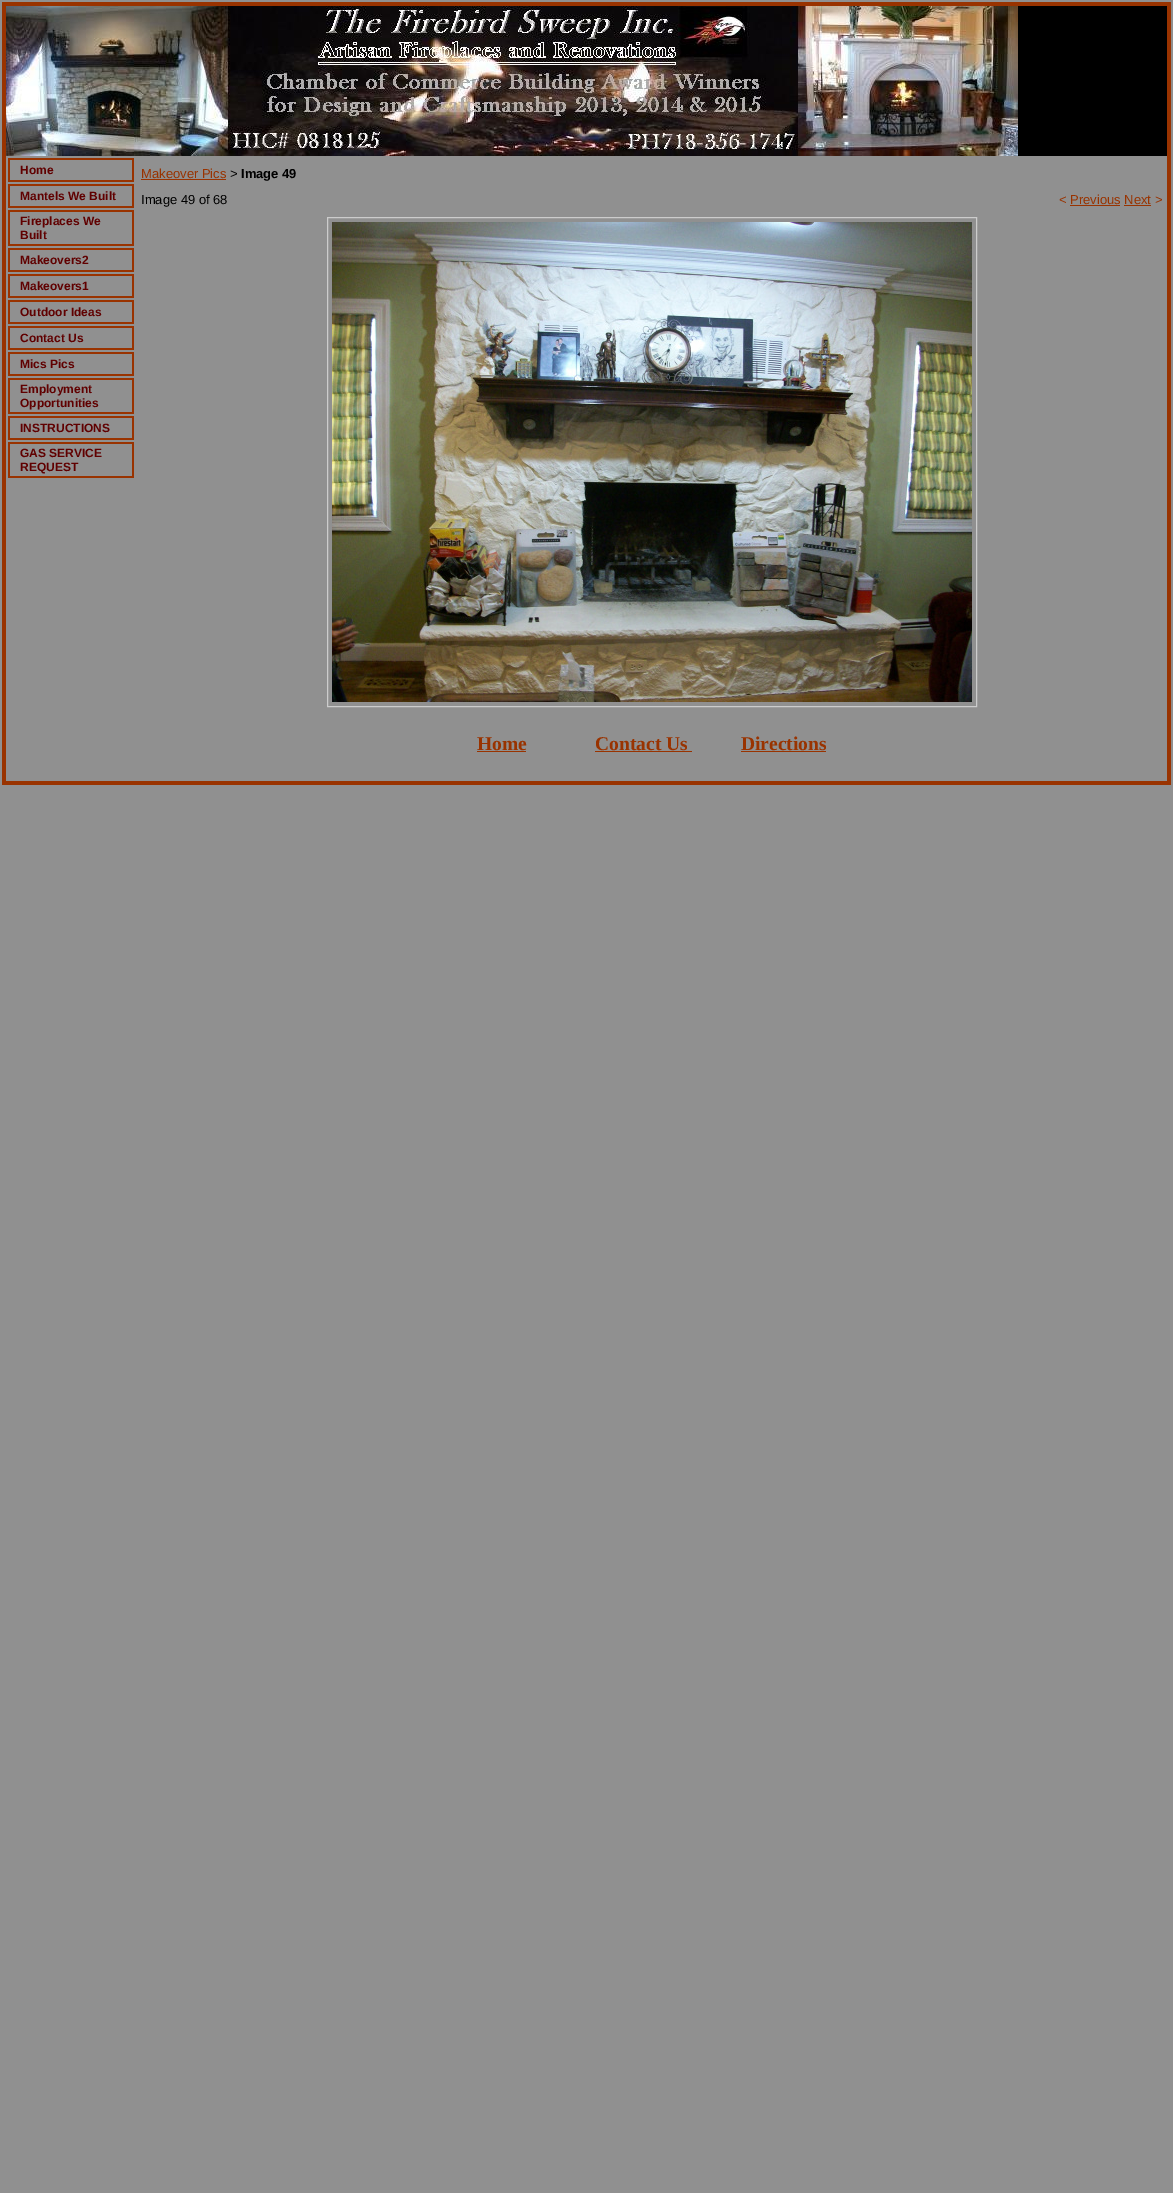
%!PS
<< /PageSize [1173 2193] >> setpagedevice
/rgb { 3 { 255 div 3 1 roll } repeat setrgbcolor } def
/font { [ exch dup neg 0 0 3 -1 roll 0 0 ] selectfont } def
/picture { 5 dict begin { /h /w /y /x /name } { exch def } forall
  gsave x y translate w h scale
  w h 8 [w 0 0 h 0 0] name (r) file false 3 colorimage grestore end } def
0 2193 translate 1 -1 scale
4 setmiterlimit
144 144 144 rgb
0 0 1173 2193 rectfill
153 51 0 rgb
2 2 1169 783 rectfill
0 0 0 rgb
1018 6 149 150 rectfill
(img/1.rgb) 6 6 1012 150 picture
[
  [6 156 1161 625 144 144 144]
  [8 158 126 24 153 51 0]
  [10 160 122 20 144 144 144]
  [8 184 126 24 153 51 0]
  [10 186 122 20 144 144 144]
  [8 210 126 36 153 51 0]
  [10 212 122 32 144 144 144]
  [8 248 126 24 153 51 0]
  [10 250 122 20 144 144 144]
  [8 274 126 24 153 51 0]
  [10 276 122 20 144 144 144]
  [8 300 126 24 153 51 0]
  [10 302 122 20 144 144 144]
  [8 326 126 24 153 51 0]
  [10 328 122 20 144 144 144]
  [8 352 126 24 153 51 0]
  [10 354 122 20 144 144 144]
  [8 378 126 36 153 51 0]
  [10 380 122 32 144 144 144]
  [8 416 126 24 153 51 0]
  [10 418 122 20 144 144 144]
  [8 442 126 36 153 51 0]
  [10 444 122 32 144 144 144]
  [141 179 85 1 153 51 0]
  [1070 205 50 1 153 51 0]
  [1124 205 27 1 153 51 0]
] { aload pop rgb rectfill } forall
204 204 204 rgb
327.5 217.5 649 489 rectstroke
(img/2.rgb) 332 222 640 480 picture
[
  [477 751 49 1 153 51 0]
  [595 751 97 1 153 51 0]
  [741 751 85 1 153 51 0]
] { aload pop rgb rectfill } forall
/LiberationSans-Bold 12 font
96 0 0 rgb
[
  [(Home) 20 174]
  [(Mantels We Built) 20 200]
  [(Fireplaces We) 20 225]
  [(Built) 20 239]
  [(Makeovers2) 20 264]
  [(Makeovers1) 20 290]
  [(Outdoor Ideas) 20 316]
  [(Contact Us) 20 342]
  [(Mics Pics) 20 368]
  [(Employment) 20 393]
  [(Opportunities) 20 407]
  [(INSTRUCTIONS) 20 432]
  [(GAS SERVICE) 20 457]
  [(REQUEST) 20 471]
] { aload pop moveto show } forall
/LiberationSans-Regular 13 font
153 51 0 rgb
141 178 moveto (Makeover Pics) show
/LiberationMono-Regular 13 font
0 0 0 rgb
230 178 moveto (>) show
/LiberationSans-Bold 13 font
241 178 moveto (Image 49) show
/LiberationSans-Regular 13 font
141 204 moveto (Image 49 of 68) show
153 51 0 rgb
1059 204 moveto (< Previous Next >) show
/LiberationSerif-Bold 19.5 font
[
  [(Home) 477 750]
  [(Contact Us) 595 750]
  [(Directions) 741 750]
] { aload pop moveto show } forall
showpage
